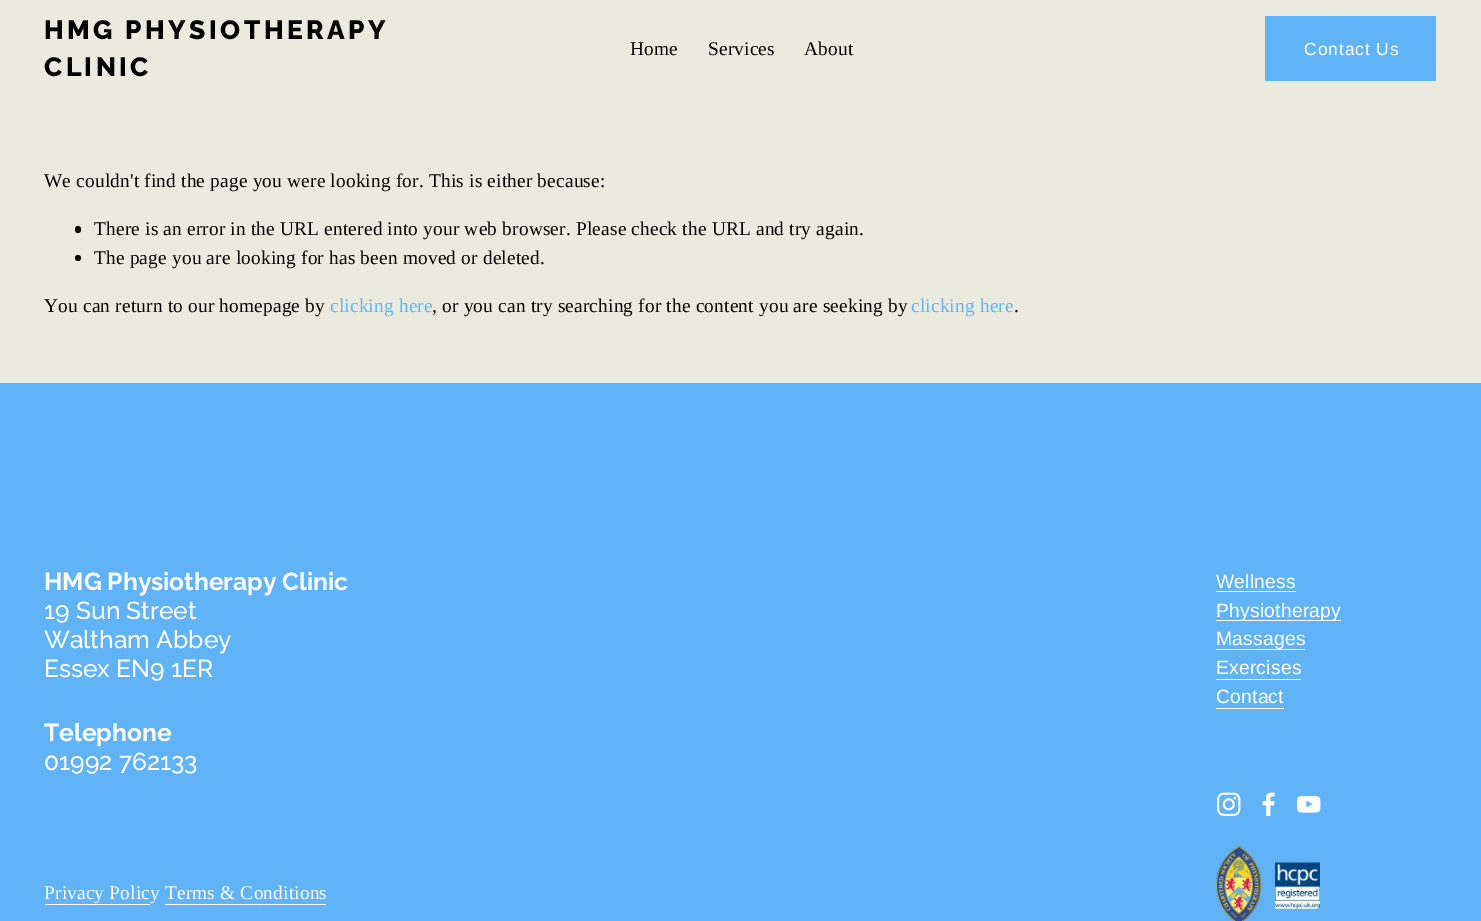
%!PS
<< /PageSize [1481 921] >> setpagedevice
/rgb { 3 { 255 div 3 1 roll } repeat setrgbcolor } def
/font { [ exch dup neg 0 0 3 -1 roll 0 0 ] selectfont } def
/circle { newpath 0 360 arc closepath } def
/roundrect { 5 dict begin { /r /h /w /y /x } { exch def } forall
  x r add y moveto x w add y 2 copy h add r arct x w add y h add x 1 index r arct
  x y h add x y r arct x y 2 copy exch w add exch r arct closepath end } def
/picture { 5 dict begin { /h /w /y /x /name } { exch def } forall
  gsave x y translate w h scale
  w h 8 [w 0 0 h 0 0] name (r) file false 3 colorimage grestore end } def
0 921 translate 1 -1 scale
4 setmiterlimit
235 234 223 rgb
0 0 1481 921 rectfill
97 179 248 rgb
1265 16 171 65 rectfill
0 0 0 rgb
75 226 6 7 3 roundrect fill
78 258 3 circle fill
[
  [0 383 1481 538 97 179 248]
  [1216 591 80 1 255 255 255]
  [1216 620 125 1 255 255 255]
  [1216 649 89 1 255 255 255]
  [1216 679 85 1 255 255 255]
  [1216 708 68 1 255 255 255]
] { aload pop rgb rectfill } forall
(img/1.rgb) 1217 792 24 24 picture
(img/2.rgb) 1262 792 13 24 picture
(img/3.rgb) 1297 796 24 17 picture
45 904 105 1 rectfill
165 904 161 1 rectfill
(img/4.rgb) 1216 846 46 75 picture
(img/5.rgb) 1275 862 45 47 picture
/Raleway-ExtraBold 26.4 font
0 0 0 rgb
44 39 moveto 3.4 0 (HMG PHYSIOTHERAPY) ashow
44 76 moveto 3.4 0 (CLINIC) ashow
/LiberationSerif-Regular 19.3 font
630 55 moveto 0.2 0 (Home) ashow
708 55 moveto 0.2 0 (Services) ashow
804 55 moveto 0.2 0 (About) ashow
/LiberationSans-Regular 17.5 font
255 255 255 rgb
1304 55 moveto 0.9 0 (Contact Us) ashow
/LiberationSerif-Regular 19.3 font
0 0 0 rgb
44 187 moveto 0.2 0 (We couldn't find the page you were looking for. This is either because:) ashow
94 235 moveto 0.2 0 (There is an error in the URL entered into your web browser. Please check the URL and try again.) ashow
94 264 moveto 0.2 0 (The page you are looking for has been moved or deleted.) ashow
44 312 moveto 0.2 0 (You can return to our homepage by) ashow
97 179 248 rgb
330 312 moveto 0.2 0 (clicking here) ashow
0 0 0 rgb
432 312 moveto 0.2 0 (, or you can try searching for the content you are seeking by) ashow
97 179 248 rgb
911 312 moveto 0.2 0 (clicking here) ashow
0 0 0 rgb
1014 312 moveto 0.2 0 (.) ashow
/Raleway-Bold 24.6 font
255 255 255 rgb
44 590 moveto (HMG Physiotherapy Clinic) show
/Raleway-Medium 24.6 font
[
  [(19 Sun Street) 44 619]
  [(Waltham Abbey) 44 648]
  [(Essex EN9 1ER) 44 677]
] { aload pop moveto show } forall
/Raleway-Bold 24.6 font
44 741 moveto (Telephone) show
/Raleway-Medium 24.6 font
44 770 moveto (01992 762133) show
/LiberationSans-Regular 19.3 font
1216 588 moveto 0.2 0 (Wellness) ashow
1216 617 moveto 0.2 0 (Physiotherapy) ashow
1216 645 moveto 0.2 0 (Massages) ashow
1216 674 moveto 0.2 0 (Exercises) ashow
1216 703 moveto 0.2 0 (Contact) ashow
/LiberationSerif-Regular 19.3 font
44 899 moveto 0.2 0 (Privacy Policy Terms & Conditions) ashow
showpage
